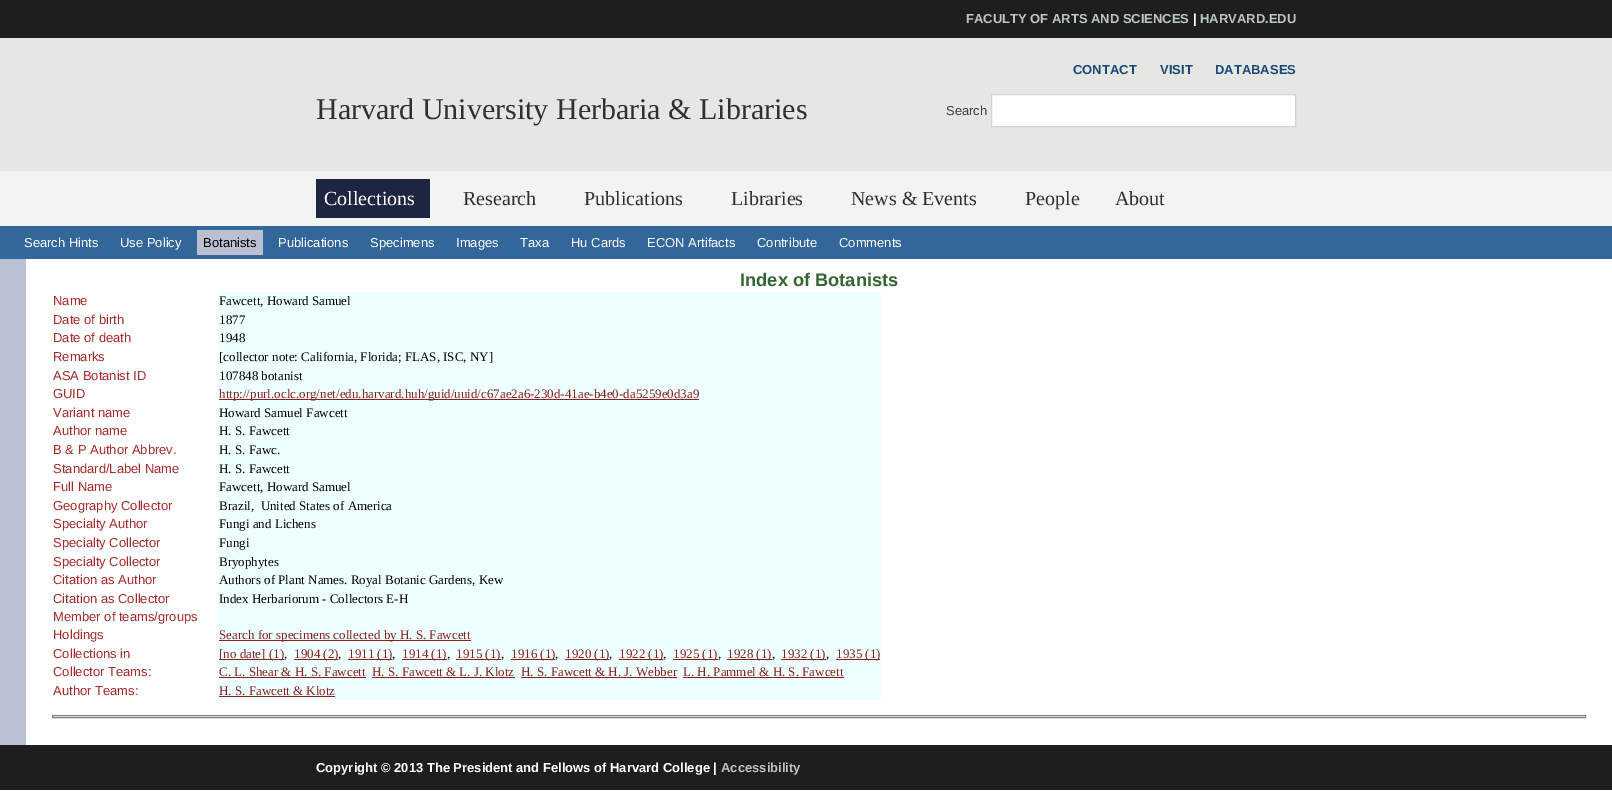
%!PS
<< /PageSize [1612 793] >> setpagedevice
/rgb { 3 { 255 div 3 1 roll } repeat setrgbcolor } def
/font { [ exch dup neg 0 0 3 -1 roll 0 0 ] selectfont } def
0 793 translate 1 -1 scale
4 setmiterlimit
255 255 255 rgb
0 0 1612 793 rectfill
30 30 30 rgb
0 0 1612 38 rectfill
230 230 227 rgb
0 38 1612 133 rectfill
255 255 255 rgb
991.5 94.5 moveto 1295.5 94.5 lineto 1295.5 126.5 lineto 991.5 126.5 lineto closepath gsave fill grestore
212 212 210 rgb
stroke
[
  [0 171 1612 55 243 243 241]
  [316 179 114 39 30 37 64]
  [0 226 1612 33 51 102 153]
  [197 230 66 25 184 192 210]
  [0 259 26 486 184 192 210]
  [218 292 663 408 238 255 255]
  [219 399 480 1 137 32 27]
  [219 640 252 1 137 32 27]
  [219 659 65 1 137 32 27]
  [294 659 44 1 137 32 27]
  [348 659 44 1 137 32 27]
  [402 659 45 1 137 32 27]
  [456 659 45 1 137 32 27]
  [511 659 44 1 137 32 27]
  [565 659 44 1 137 32 27]
  [619 659 44 1 137 32 27]
  [673 659 45 1 137 32 27]
  [727 659 45 1 137 32 27]
  [781 659 45 1 137 32 27]
  [836 659 44 1 137 32 27]
  [219 677 147 1 137 32 27]
  [372 677 143 1 137 32 27]
  [521 677 156 1 137 32 27]
  [683 677 161 1 137 32 27]
  [219 696 116 1 137 32 27]
] { aload pop rgb rectfill } forall
128 128 128 rgb
52.5 715.5 1533 2 rectstroke
30 30 30 rgb
0 745 1612 45 rectfill
/LiberationSans-Bold 13 font
186 197 198 rgb
966 23 moveto (FACULTY OF ARTS AND SCIENCES) show
255 255 255 rgb
1193 23 moveto (|) show
186 197 198 rgb
1200 23 moveto (HARVARD.EDU) show
/LiberationSerif-Regular 30 font
48 48 48 rgb
316 119 moveto (Harvard University Herbaria & Libraries) show
/LiberationSans-Bold 13 font
27 73 119 rgb
[
  [(CONTACT) 1073 74]
  [(VISIT) 1160 74]
  [(DATABASES) 1215 74]
] { aload pop moveto show } forall
/LiberationSans-Regular 13 font
61 61 61 rgb
946 115 moveto (Search) show
/LiberationSerif-Regular 20 font
255 255 255 rgb
324 205 moveto (Collections) show
48 48 48 rgb
[
  [(Research) 463 205]
  [(Publications) 584 205]
  [(Libraries) 731 205]
  [(News & Events) 851 205]
  [(People) 1025 205]
  [(About) 1115 205]
] { aload pop moveto show } forall
/LiberationSans-Regular 13 font
255 255 255 rgb
24 247 moveto (Search Hints) show
120 247 moveto (Use Policy) show
0 0 0 rgb
203 247 moveto (Botanists) show
255 255 255 rgb
[
  [(Publications) 278 247]
  [(Specimens) 370 247]
  [(Images) 456 247]
  [(Taxa) 520 247]
  [(Hu Cards) 571 247]
  [(ECON Artifacts) 647 247]
  [(Contribute) 757 247]
  [(Comments) 839 247]
] { aload pop moveto show } forall
/LiberationSans-Bold 18.25 font
51 102 51 rgb
740 286 moveto (Index of Botanists) show
/LiberationSans-Regular 13 font
165 42 42 rgb
53 305 moveto (Name) show
/LiberationSerif-Regular 13 font
0 0 0 rgb
219 305 moveto (Fawcett, Howard Samuel) show
/LiberationSans-Regular 13 font
165 42 42 rgb
53 324 moveto (Date of birth) show
/LiberationSerif-Regular 13 font
0 0 0 rgb
219 324 moveto (1877) show
/LiberationSans-Regular 13 font
165 42 42 rgb
53 342 moveto (Date of death) show
/LiberationSerif-Regular 13 font
0 0 0 rgb
219 342 moveto (1948) show
/LiberationSans-Regular 13 font
165 42 42 rgb
53 361 moveto (Remarks) show
/LiberationSerif-Regular 13 font
0 0 0 rgb
219 361 moveto ([collector note: California, Florida; FLAS, ISC, NY]) show
/LiberationSans-Regular 13 font
165 42 42 rgb
53 380 moveto (ASA Botanist ID) show
/LiberationSerif-Regular 13 font
0 0 0 rgb
219 380 moveto (107848 botanist) show
/LiberationSans-Regular 13 font
165 42 42 rgb
53 398 moveto (GUID) show
/LiberationSerif-Regular 13 font
137 32 27 rgb
219 398 moveto (http://purl.oclc.org/net/edu.harvard.huh/guid/uuid/c67ae2a6-230d-41ae-b4e0-da5259e0d3a9) show
/LiberationSans-Regular 13 font
165 42 42 rgb
53 417 moveto (Variant name) show
/LiberationSerif-Regular 13 font
0 0 0 rgb
219 417 moveto (Howard Samuel Fawcett) show
/LiberationSans-Regular 13 font
165 42 42 rgb
53 435 moveto (Author name) show
/LiberationSerif-Regular 13 font
0 0 0 rgb
219 435 moveto (H. S. Fawcett) show
/LiberationSans-Regular 13 font
165 42 42 rgb
53 454 moveto (B & P Author Abbrev.) show
/LiberationSerif-Regular 13 font
0 0 0 rgb
219 454 moveto (H. S. Fawc.) show
/LiberationSans-Regular 13 font
165 42 42 rgb
53 473 moveto (Standard/Label Name) show
/LiberationSerif-Regular 13 font
0 0 0 rgb
219 473 moveto (H. S. Fawcett) show
/LiberationSans-Regular 13 font
165 42 42 rgb
53 491 moveto (Full Name) show
/LiberationSerif-Regular 13 font
0 0 0 rgb
219 491 moveto (Fawcett, Howard Samuel) show
/LiberationSans-Regular 13 font
165 42 42 rgb
53 510 moveto (Geography Collector) show
/LiberationSerif-Regular 13 font
0 0 0 rgb
219 510 moveto (Brazil,  United States of America) show
/LiberationSans-Regular 13 font
165 42 42 rgb
53 528 moveto (Specialty Author) show
/LiberationSerif-Regular 13 font
0 0 0 rgb
219 528 moveto (Fungi and Lichens) show
/LiberationSans-Regular 13 font
165 42 42 rgb
53 547 moveto (Specialty Collector) show
/LiberationSerif-Regular 13 font
0 0 0 rgb
219 547 moveto (Fungi) show
/LiberationSans-Regular 13 font
165 42 42 rgb
53 566 moveto (Specialty Collector) show
/LiberationSerif-Regular 13 font
0 0 0 rgb
219 566 moveto (Bryophytes) show
/LiberationSans-Regular 13 font
165 42 42 rgb
53 584 moveto (Citation as Author) show
/LiberationSerif-Regular 13 font
0 0 0 rgb
219 584 moveto (Authors of Plant Names. Royal Botanic Gardens, Kew) show
/LiberationSans-Regular 13 font
165 42 42 rgb
53 603 moveto (Citation as Collector) show
/LiberationSerif-Regular 13 font
0 0 0 rgb
219 603 moveto (Index Herbariorum - Collectors E-H) show
/LiberationSans-Regular 13 font
165 42 42 rgb
53 621 moveto (Member of teams/groups) show
53 639 moveto (Holdings) show
/LiberationSerif-Regular 13 font
137 32 27 rgb
219 639 moveto (Search for specimens collected by H. S. Fawcett) show
/LiberationSans-Regular 13 font
165 42 42 rgb
53 658 moveto (Collections in) show
/LiberationSerif-Regular 13 font
137 32 27 rgb
219 658 moveto ([no date] \(1\)) show
0 0 0 rgb
284 658 moveto (,) show
137 32 27 rgb
294 658 moveto (1904 \(2\)) show
0 0 0 rgb
338 658 moveto (,) show
137 32 27 rgb
348 658 moveto (1911 \(1\)) show
0 0 0 rgb
392 658 moveto (,) show
137 32 27 rgb
402 658 moveto (1914 \(1\)) show
0 0 0 rgb
447 658 moveto (,) show
137 32 27 rgb
456 658 moveto (1915 \(1\)) show
0 0 0 rgb
501 658 moveto (,) show
137 32 27 rgb
511 658 moveto (1916 \(1\)) show
0 0 0 rgb
555 658 moveto (,) show
137 32 27 rgb
565 658 moveto (1920 \(1\)) show
0 0 0 rgb
609 658 moveto (,) show
137 32 27 rgb
619 658 moveto (1922 \(1\)) show
0 0 0 rgb
663 658 moveto (,) show
137 32 27 rgb
673 658 moveto (1925 \(1\)) show
0 0 0 rgb
718 658 moveto (,) show
137 32 27 rgb
727 658 moveto (1928 \(1\)) show
0 0 0 rgb
772 658 moveto (,) show
137 32 27 rgb
781 658 moveto (1932 \(1\)) show
0 0 0 rgb
826 658 moveto (,) show
137 32 27 rgb
836 658 moveto (1935 \(1\)) show
/LiberationSans-Regular 13 font
165 42 42 rgb
53 676 moveto (Collector Teams:) show
/LiberationSerif-Regular 13 font
137 32 27 rgb
[
  [(C. L. Shear & H. S. Fawcett) 219 676]
  [(H. S. Fawcett & L. J. Klotz) 372 676]
  [(H. S. Fawcett & H. J. Webber) 521 676]
  [(L. H. Pammel & H. S. Fawcett) 683 676]
] { aload pop moveto show } forall
/LiberationSans-Regular 13 font
165 42 42 rgb
53 695 moveto (Author Teams:) show
/LiberationSerif-Regular 13 font
137 32 27 rgb
219 695 moveto (H. S. Fawcett & Klotz) show
/LiberationSans-Bold 13 font
255 255 255 rgb
316 772 moveto (Copyright © 2013 The President and Fellows of Harvard College |) show
186 197 198 rgb
721 772 moveto (Accessibility) show
showpage
